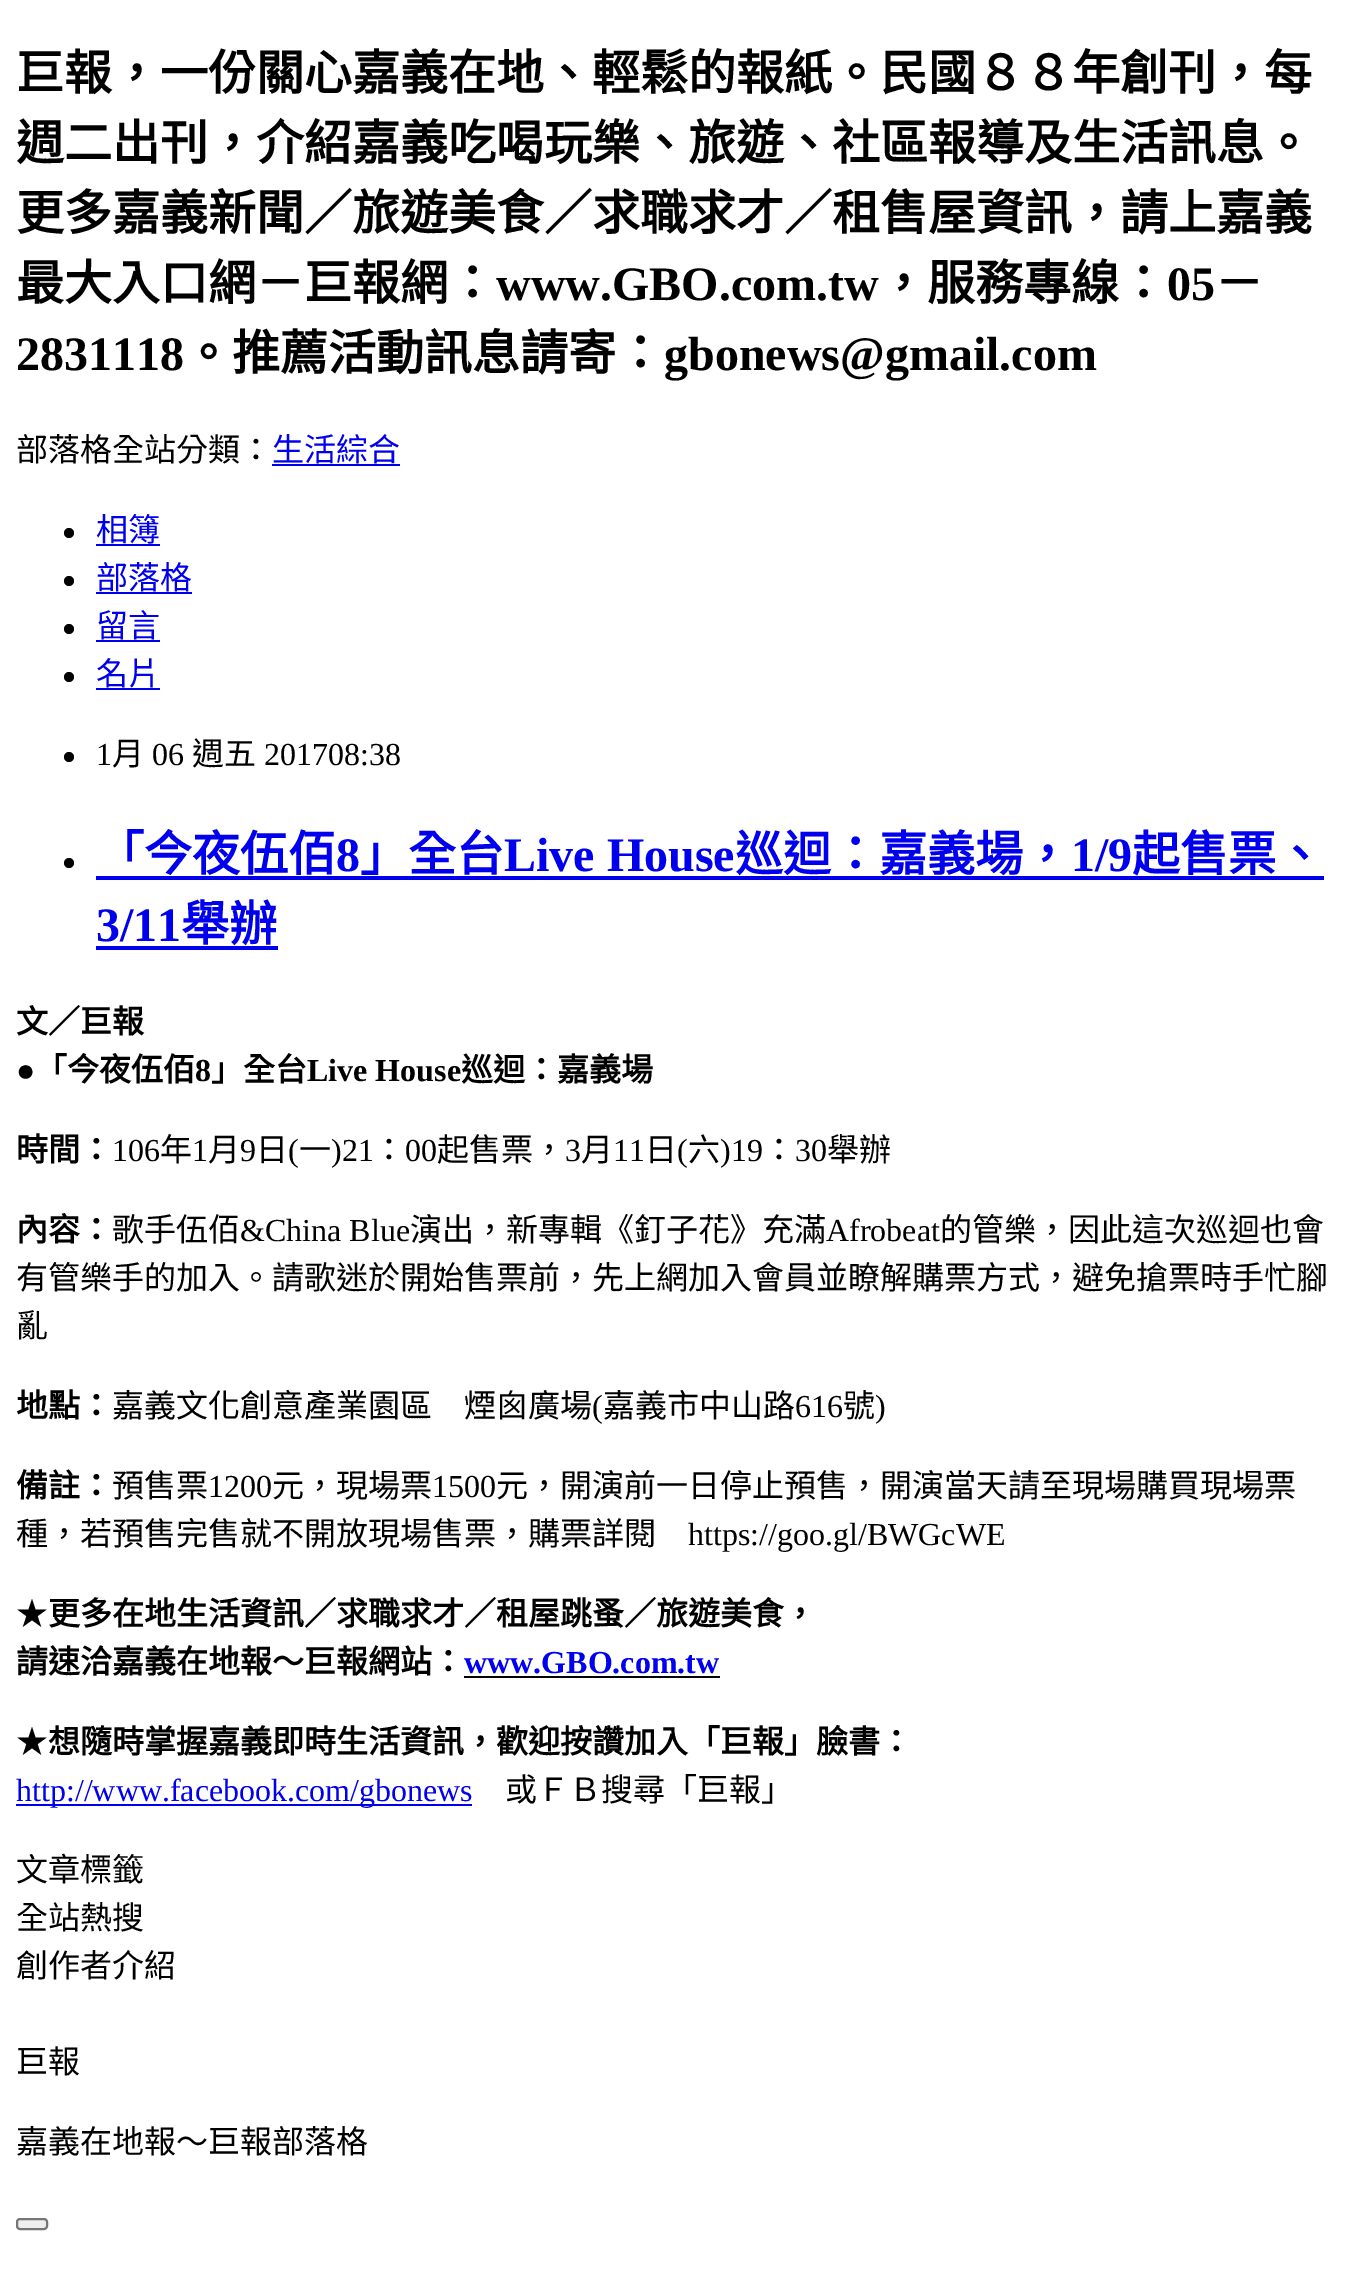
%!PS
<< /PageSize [1365 2272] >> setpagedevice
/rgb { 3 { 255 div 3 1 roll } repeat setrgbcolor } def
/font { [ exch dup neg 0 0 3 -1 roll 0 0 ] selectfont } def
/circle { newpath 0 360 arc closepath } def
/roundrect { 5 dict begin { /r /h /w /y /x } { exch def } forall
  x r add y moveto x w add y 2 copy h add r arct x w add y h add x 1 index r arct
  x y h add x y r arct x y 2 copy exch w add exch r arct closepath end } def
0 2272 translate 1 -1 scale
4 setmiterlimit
255 255 255 rgb
0 0 1365 2272 rectfill
0 0 238 rgb
272 464 128 2 rectfill
0 0 0 rgb
69 533 5 circle fill
0 0 238 rgb
96 544 64 2 rectfill
0 0 0 rgb
69 581 5 circle fill
0 0 238 rgb
96 592 96 2 rectfill
0 0 0 rgb
69 629 5 circle fill
0 0 238 rgb
96 640 64 2 rectfill
0 0 0 rgb
69 677 5 circle fill
0 0 238 rgb
96 688 64 2 rectfill
0 0 0 rgb
69 757 5 circle fill
69 863 5 circle fill
[
  [96 876 1228 4 0 0 238]
  [96 946 182 4 0 0 238]
  [464 1676 256 2 0 0 0]
  [16 1804 456 2 0 0 238]
] { aload pop rgb rectfill } forall
239 239 239 rgb
17 2219 30 10 3 roundrect gsave fill grestore
118 118 118 rgb
2 setlinewidth
stroke
/NotoSansCJKTC-Bold 48 font
0 0 0 rgb
[
  [(巨報，一份關心嘉義在地、輕鬆的報紙。民國８８年創刊，每) 16 90]
  [(週二出刊，介紹嘉義吃喝玩樂、旅遊、社區報導及生活訊息。) 16 160]
  [(更多嘉義新聞／旅遊美食／求職求才／租售屋資訊，請上嘉義) 16 230]
  [(最大入口網－巨報網：) 16 300]
] { aload pop moveto show } forall
/LiberationSerif-Bold 48 font
496 300 moveto (www.GBO.com.tw) show
/NotoSansCJKTC-Bold 48 font
879 300 moveto (，服務專線：) show
/LiberationSerif-Bold 48 font
1167 300 moveto (05) show
/NotoSansCJKTC-Bold 48 font
1215 300 moveto (－) show
/LiberationSerif-Bold 48 font
16 370 moveto (2831118) show
/NotoSansCJKTC-Bold 48 font
184 370 moveto (。推薦活動訊息請寄：) show
/LiberationSerif-Bold 48 font
664 370 moveto (gbonews@gmail.com) show
/NotoSansCJKTC-Regular 32 font
16 461 moveto (部落格全站分類：) show
0 0 238 rgb
[
  [(生活綜合) 272 461]
  [(相簿) 96 541]
  [(部落格) 96 589]
  [(留言) 96 637]
  [(名片) 96 685]
] { aload pop moveto show } forall
/LiberationSerif-Regular 32 font
0 0 0 rgb
96 765 moveto (1) show
/NotoSansCJKTC-Regular 32 font
112 765 moveto (月) show
/LiberationSerif-Regular 32 font
152 765 moveto (06) show
/NotoSansCJKTC-Regular 32 font
192 765 moveto (週五) show
/LiberationSerif-Regular 32 font
264 765 moveto (201708:38) show
/NotoSansCJKTC-Bold 48 font
0 0 238 rgb
96 871 moveto (「今夜伍佰) show
/LiberationSerif-Bold 48 font
336 871 moveto (8) show
/NotoSansCJKTC-Bold 48 font
360 871 moveto (」全台) show
/LiberationSerif-Bold 48 font
504 871 moveto (Live House) show
/NotoSansCJKTC-Bold 48 font
735 871 moveto (巡迴：嘉義場，) show
/LiberationSerif-Bold 48 font
1071 871 moveto (1/9) show
/NotoSansCJKTC-Bold 48 font
1132 871 moveto (起售票、) show
/LiberationSerif-Bold 48 font
96 941 moveto (3/11) show
/NotoSansCJKTC-Bold 48 font
181 941 moveto (舉辦) show
/NotoSansCJKTC-Bold 32 font
0 0 0 rgb
16 1033 moveto (文／巨報) show
/LiberationSerif-Bold 32 font
16 1081 moveto (●) show
/NotoSansCJKTC-Bold 32 font
35 1081 moveto (「今夜伍佰) show
/LiberationSerif-Bold 32 font
195 1081 moveto (8) show
/NotoSansCJKTC-Bold 32 font
211 1081 moveto (」全台) show
/LiberationSerif-Bold 32 font
307 1081 moveto (Live House) show
/NotoSansCJKTC-Bold 32 font
461 1081 moveto (巡迴：嘉義場) show
16 1161 moveto (時間：) show
/LiberationSerif-Regular 32 font
112 1161 moveto (106) show
/NotoSansCJKTC-Regular 32 font
160 1161 moveto (年) show
/LiberationSerif-Regular 32 font
192 1161 moveto (1) show
/NotoSansCJKTC-Regular 32 font
208 1161 moveto (月) show
/LiberationSerif-Regular 32 font
240 1161 moveto (9) show
/NotoSansCJKTC-Regular 32 font
256 1161 moveto (日) show
/LiberationSerif-Regular 32 font
288 1161 moveto (\() show
/NotoSansCJKTC-Regular 32 font
299 1161 moveto (一) show
/LiberationSerif-Regular 32 font
331 1161 moveto (\)21) show
/NotoSansCJKTC-Regular 32 font
373 1161 moveto (：) show
/LiberationSerif-Regular 32 font
405 1161 moveto (00) show
/NotoSansCJKTC-Regular 32 font
437 1161 moveto (起售票，) show
/LiberationSerif-Regular 32 font
565 1161 moveto (3) show
/NotoSansCJKTC-Regular 32 font
581 1161 moveto (月) show
/LiberationSerif-Regular 32 font
613 1161 moveto (11) show
/NotoSansCJKTC-Regular 32 font
645 1161 moveto (日) show
/LiberationSerif-Regular 32 font
677 1161 moveto (\() show
/NotoSansCJKTC-Regular 32 font
688 1161 moveto (六) show
/LiberationSerif-Regular 32 font
720 1161 moveto (\)19) show
/NotoSansCJKTC-Regular 32 font
763 1161 moveto (：) show
/LiberationSerif-Regular 32 font
795 1161 moveto (30) show
/NotoSansCJKTC-Regular 32 font
827 1161 moveto (舉辦) show
/NotoSansCJKTC-Bold 32 font
16 1241 moveto (內容：) show
/NotoSansCJKTC-Regular 32 font
112 1241 moveto (歌手伍佰) show
/LiberationSerif-Regular 32 font
240 1241 moveto (&China Blue) show
/NotoSansCJKTC-Regular 32 font
410 1241 moveto (演出，新專輯《釘子花》充滿) show
/LiberationSerif-Regular 32 font
826 1241 moveto (Afrobeat) show
/NotoSansCJKTC-Regular 32 font
[
  [(的管樂，因此這次巡迴也會) 940 1241]
  [(有管樂手的加入。請歌迷於開始售票前，先上網加入會員並瞭解購票方式，避免搶票時手忙腳) 16 1289]
  [(亂) 16 1337]
] { aload pop moveto show } forall
/NotoSansCJKTC-Bold 32 font
16 1417 moveto (地點：) show
/NotoSansCJKTC-Regular 32 font
112 1417 moveto (嘉義文化創意產業園區　煙囪廣場) show
/LiberationSerif-Regular 32 font
592 1417 moveto (\() show
/NotoSansCJKTC-Regular 32 font
603 1417 moveto (嘉義市中山路) show
/LiberationSerif-Regular 32 font
795 1417 moveto (616) show
/NotoSansCJKTC-Regular 32 font
843 1417 moveto (號) show
/LiberationSerif-Regular 32 font
875 1417 moveto (\)) show
/NotoSansCJKTC-Bold 32 font
16 1497 moveto (備註：) show
/NotoSansCJKTC-Regular 32 font
112 1497 moveto (預售票) show
/LiberationSerif-Regular 32 font
208 1497 moveto (1200) show
/NotoSansCJKTC-Regular 32 font
272 1497 moveto (元，現場票) show
/LiberationSerif-Regular 32 font
432 1497 moveto (1500) show
/NotoSansCJKTC-Regular 32 font
496 1497 moveto (元，開演前一日停止預售，開演當天請至現場購買現場票) show
16 1545 moveto (種，若預售完售就不開放現場售票，購票詳閱) show
/LiberationSerif-Regular 32 font
688 1545 moveto (https://goo.gl/BWGcWE) show
/NotoSansCJKTC-Regular 32 font
16 1625 moveto (★) show
/NotoSansCJKTC-Bold 32 font
48 1625 moveto (更多在地生活資訊／求職求才／租屋跳蚤／旅遊美食，) show
16 1673 moveto (請速洽嘉義在地報～巨報網站：) show
/LiberationSerif-Bold 32 font
0 0 238 rgb
464 1673 moveto (www.GBO.com.tw) show
/NotoSansCJKTC-Regular 32 font
0 0 0 rgb
16 1753 moveto (★) show
/NotoSansCJKTC-Bold 32 font
48 1753 moveto (想隨時掌握嘉義即時生活資訊，歡迎按讚加入「巨報」臉書：) show
/LiberationSerif-Regular 32 font
0 0 238 rgb
16 1801 moveto (http://www.facebook.com/gbonews) show
/NotoSansCJKTC-Regular 32 font
0 0 0 rgb
[
  [(或ＦＢ搜尋「巨報」) 505 1801]
  [(文章標籤) 16 1881]
  [(全站熱搜) 16 1929]
  [(創作者介紹) 16 1977]
  [(巨報) 16 2073]
  [(嘉義在地報～巨報部落格) 16 2153]
] { aload pop moveto show } forall
showpage
